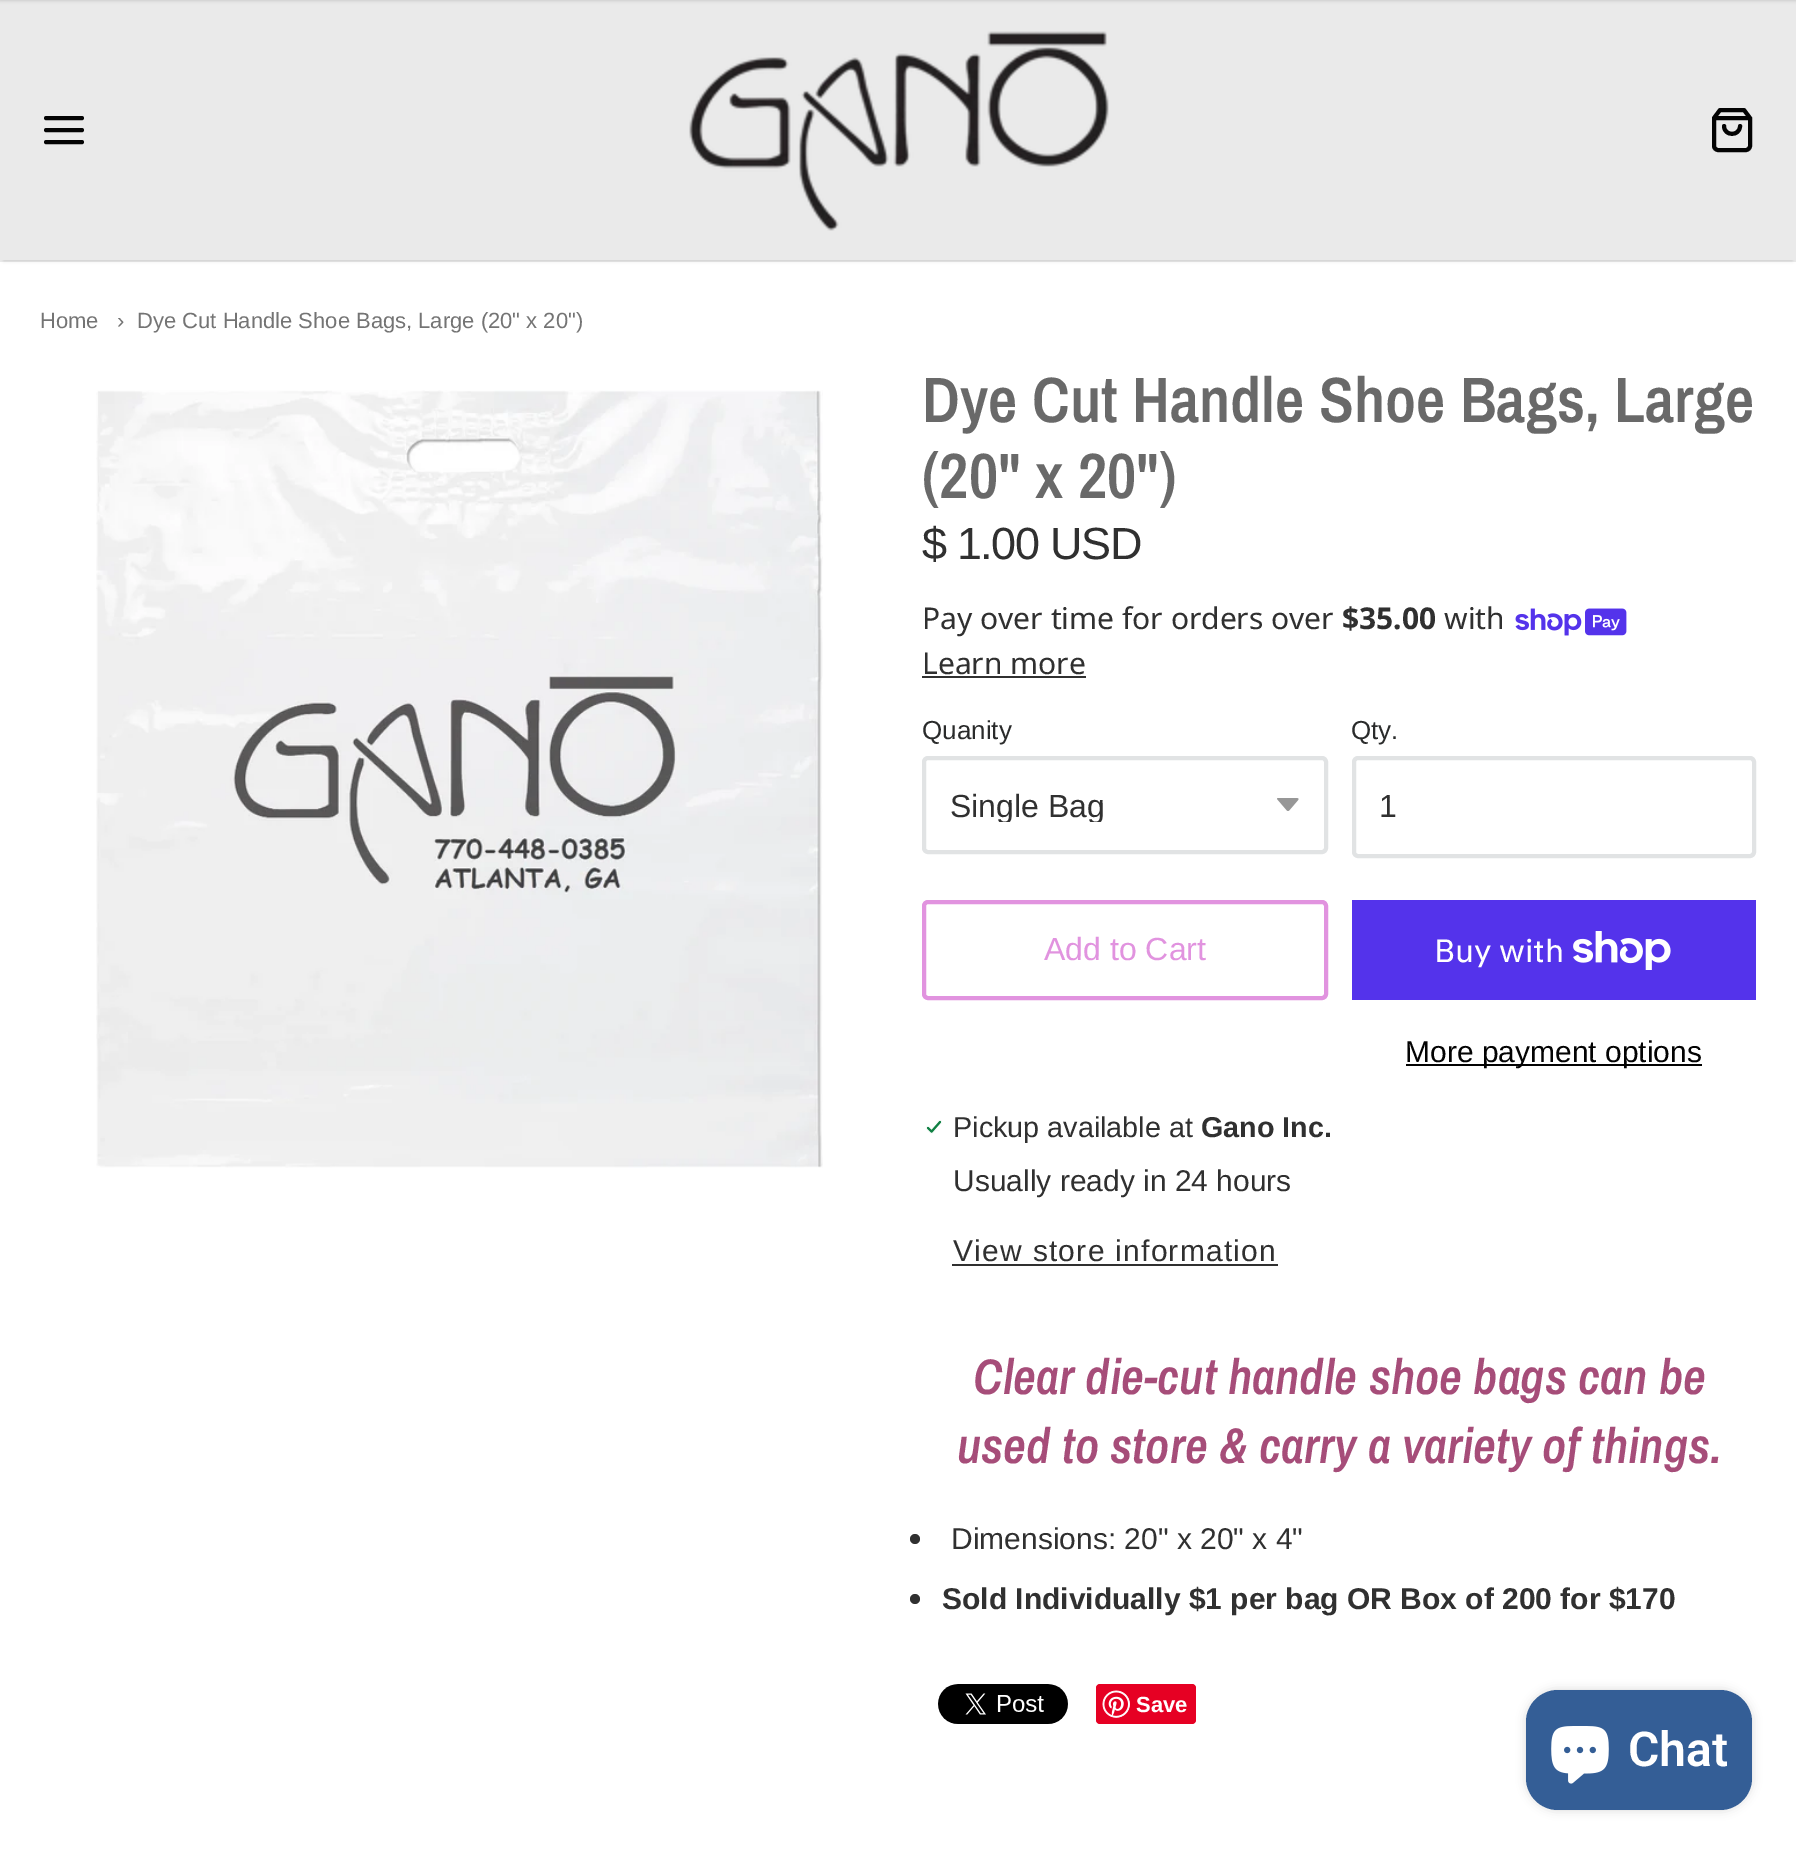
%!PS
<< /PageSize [1796 1852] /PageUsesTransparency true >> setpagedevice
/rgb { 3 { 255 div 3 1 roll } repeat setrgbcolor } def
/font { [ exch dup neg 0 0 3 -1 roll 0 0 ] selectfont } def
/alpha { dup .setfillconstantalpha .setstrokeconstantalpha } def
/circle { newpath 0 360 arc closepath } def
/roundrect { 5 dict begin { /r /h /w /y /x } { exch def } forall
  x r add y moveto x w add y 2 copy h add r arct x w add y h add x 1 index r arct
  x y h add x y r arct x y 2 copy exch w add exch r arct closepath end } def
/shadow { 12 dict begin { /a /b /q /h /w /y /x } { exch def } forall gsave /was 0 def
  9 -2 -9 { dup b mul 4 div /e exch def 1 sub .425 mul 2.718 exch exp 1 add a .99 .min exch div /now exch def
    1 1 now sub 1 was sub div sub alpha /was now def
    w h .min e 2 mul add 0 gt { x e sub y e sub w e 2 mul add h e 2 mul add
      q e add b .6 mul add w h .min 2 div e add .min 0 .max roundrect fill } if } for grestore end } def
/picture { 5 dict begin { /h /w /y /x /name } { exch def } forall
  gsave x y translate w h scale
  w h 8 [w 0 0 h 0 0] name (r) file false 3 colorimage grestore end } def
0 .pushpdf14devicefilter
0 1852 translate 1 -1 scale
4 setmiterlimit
255 255 255 rgb
0 0 1796 1852 rectfill
235 235 235 rgb
0 260 1796 2 rectfill
0 0 0 rgb
4 8 1788 252 0 2 0.2 shadow
234 234 234 rgb
0 0 1796 260 rectfill
3 3 3 rgb
4 setlinewidth
1 setlinecap
1 setlinejoin
46 130 moveto 82 130 lineto 46 118 moveto 82 118 lineto 46 142 moveto 82 142 lineto stroke
(img/1.rgb) 689 31 420 200 picture
1720 110 moveto 1714 118 lineto 1714 146 lineto 1714 148 1716 150 1718 150 curveto 1746 150 lineto 1748 150 1750 148 1750 146 curveto 1750 118 lineto 1744 110 lineto closepath 1714 118 moveto 1750 118 lineto 1740 126 moveto 1740 136.5 1724 136.5 1724 126 curveto stroke
0 0 0 rgb
0 -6 1796 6 0 2 0.2 shadow
(img/2.rgb) 96 390 727 778 picture
(img/3.rgb) 1515 608 112 28 picture
48 48 48 rgb
922 676 164 2 rectfill
(img/4.rgb) 1277 798 22 13 picture
225 227 228 rgb
0 setlinecap
0 setlinejoin
924 758 402 94 4 roundrect stroke
1354 758 400 98 4 roundrect stroke
225 147 223 rgb
924 902 402 96 4 roundrect stroke
84 51 235 rgb
1352 900 404 100 rectfill
(img/5.rgb) 1573 931 98 39 picture
3 3 3 rgb
1406 1064 296 2 rectfill
(img/6.rgb) 926 1120 16 14 picture
48 48 48 rgb
952 1264 326 2 rectfill
915 1539 5 circle fill
915 1599 5 circle fill
(img/7.rgb) 938 1684 130 40 picture
230 0 35 rgb
1096 1684 100 40 4 roundrect fill
(img/8.rgb) 1102 1690 28 28 picture
0 0 0 rgb
1526 1690 226 120 32 5 0.15 shadow
52 94 150 rgb
1526 1690 226 120 32 roundrect fill
(img/9.rgb) 1551 1726 58 58 picture
/Arimo-Regular 22 font
116 116 116 rgb
[
  [(Home) 40 328]
  [(›) 117 328]
  [(Dye Cut Handle Shoe Bags, Large \(20" x 20"\)) 137 328]
] { aload pop moveto show } forall
/ArchivoNarrow-SemiBold 64 font
105 105 105 rgb
922 422 moveto (Dye Cut Handle Shoe Bags, Large) show
922 498 moveto (\(20" x 20"\)) show
/Arimo-Regular 45 font
48 48 48 rgb
922 559 moveto -1.4 0 ($ 1.00 USD) ashow
/NotoSans-Regular 30 font
922 629 moveto (Pay over time for orders over) show
/NotoSans-Bold 30 font
1342 629 moveto ($35.00) show
/NotoSans-Regular 30 font
1444 629 moveto (with) show
922 674 moveto (Learn more) show
/Arimo-Regular 26 font
42 43 43 rgb
922 739 moveto (Quanity) show
gsave
950 788 306 34 rectclip
/Arimo-Regular 32 font
48 48 48 rgb
950 817 moveto (Single Bag) show
grestore
1351 739 moveto (Qty.) show
/Arimo-Regular 32 font
48 48 48 rgb
1379 817 moveto (1) show
225 147 223 rgb
1044 960 moveto (Add to Cart) show
/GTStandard-Regular 32 font
255 255 255 rgb
1434 962 moveto (Buy with) show
/Arimo-Regular 30 font
3 3 3 rgb
1405 1062 moveto (More payment options) show
/Arimo-Regular 28.75 font
48 48 48 rgb
953 1137 moveto (Pickup available at) show
/Arimo-Bold 28.75 font
1201 1137 moveto (Gano Inc.) show
/Arimo-Regular 30 font
953 1191 moveto (Usually ready in 24 hours) show
953 1261 moveto 1.25 0 (View store information) ashow
/ArchivoNarrow-SemiBoldItalic 50 font
166 77 121 rgb
973 1394 moveto (Clear die-cut handle shoe bags can be) show
957 1463 moveto (used to store & carry a variety of things.) show
/Arimo-Regular 30 font
48 48 48 rgb
951 1549 moveto (Dimensions: 20" x 20" x 4") show
/Arimo-Bold 30 font
942 1609 moveto (Sold Individually $1 per bag OR Box of 200 for $170) show
/LiberationSans-Bold 22 font
255 255 255 rgb
1136 1712 moveto (Save) show
/Roboto-SemiBold 48 font
1628 1766 moveto (Chat) show
.poppdf14devicefilter showpage
